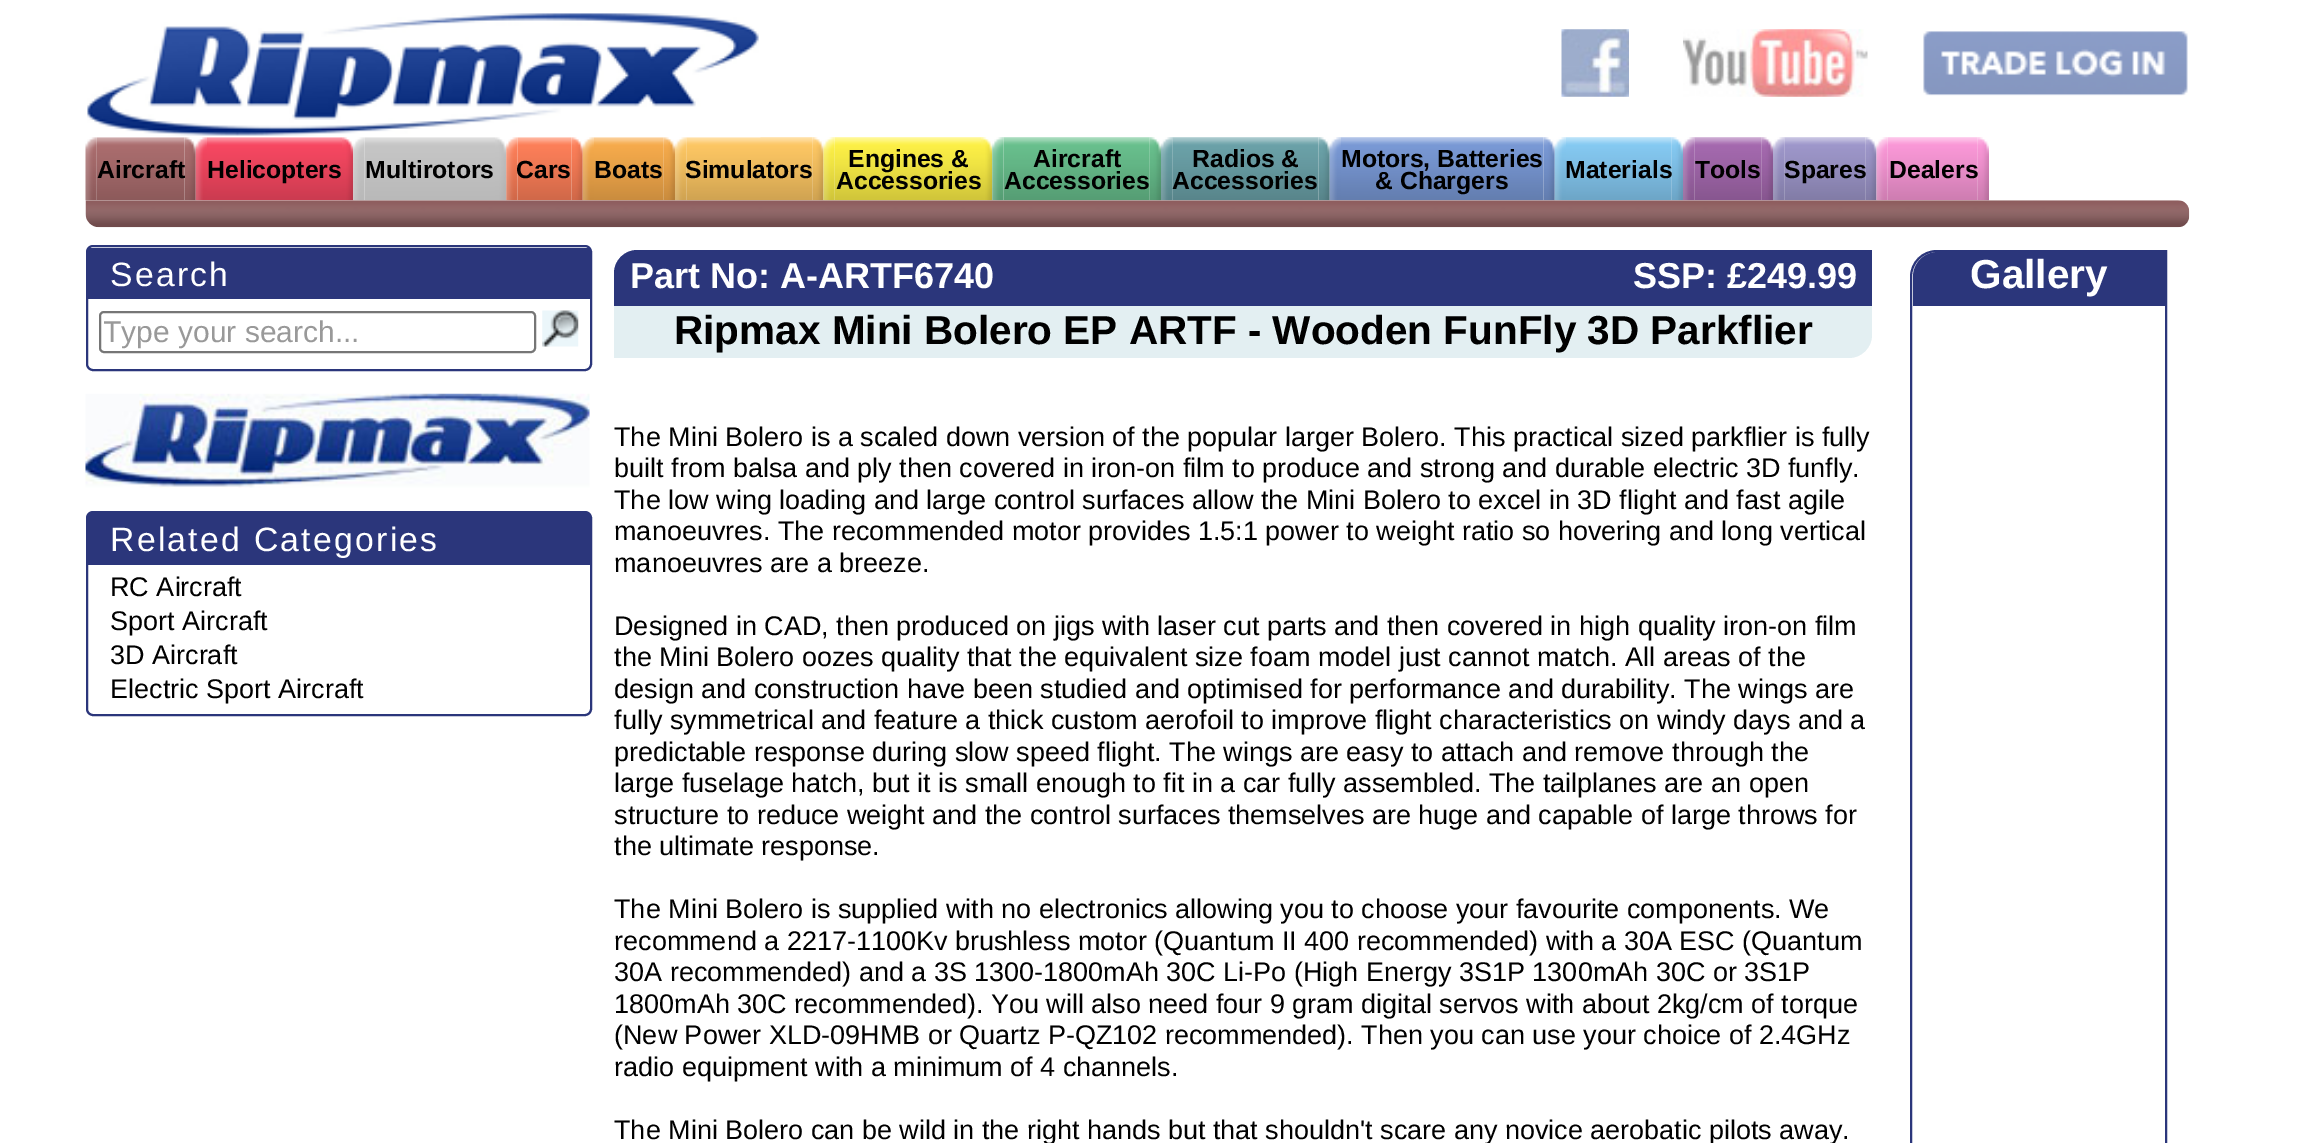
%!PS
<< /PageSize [2301 1143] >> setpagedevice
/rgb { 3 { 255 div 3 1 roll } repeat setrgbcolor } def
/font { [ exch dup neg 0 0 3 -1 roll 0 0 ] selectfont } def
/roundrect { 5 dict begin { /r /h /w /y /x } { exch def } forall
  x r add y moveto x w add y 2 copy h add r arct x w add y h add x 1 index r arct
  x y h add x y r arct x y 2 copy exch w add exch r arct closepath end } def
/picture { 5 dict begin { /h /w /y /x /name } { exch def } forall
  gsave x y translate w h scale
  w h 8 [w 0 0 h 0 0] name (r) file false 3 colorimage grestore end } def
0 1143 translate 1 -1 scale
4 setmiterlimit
255 255 255 rgb
0 0 2301 1143 rectfill
(img/5.rgb) 85 137 12 64 picture
(img/6.rgb) 96 137 89 64 picture
(img/7.rgb) 184 137 12 64 picture
(img/8.rgb) 195 137 12 64 picture
(img/9.rgb) 207 137 135 64 picture
(img/10.rgb) 342 137 12 64 picture
(img/11.rgb) 353 137 12 64 picture
(img/12.rgb) 364 137 131 64 picture
(img/13.rgb) 495 137 12 64 picture
(img/14.rgb) 506 137 12 64 picture
(img/15.rgb) 517 137 55 64 picture
(img/16.rgb) 571 137 12 64 picture
(img/17.rgb) 582 137 12 64 picture
(img/18.rgb) 594 137 70 64 picture
(img/19.rgb) 663 137 12 64 picture
(img/20.rgb) 675 137 12 64 picture
(img/21.rgb) 686 137 127 64 picture
(img/1.rgb) 87 13 674 125 picture
(img/2.rgb) 1561 29 68 68 picture
(img/3.rgb) 1683 29 185 68 picture
(img/4.rgb) 1923 31 265 65 picture
(img/22.rgb) 812 137 12 64 picture
(img/23.rgb) 823 137 12 64 picture
(img/24.rgb) 834 137 147 64 picture
(img/25.rgb) 981 137 12 64 picture
(img/26.rgb) 992 137 12 64 picture
(img/27.rgb) 1003 137 147 64 picture
(img/28.rgb) 1149 137 12 64 picture
(img/29.rgb) 1161 137 12 64 picture
(img/30.rgb) 1172 137 147 64 picture
(img/31.rgb) 1318 137 12 64 picture
(img/32.rgb) 1329 137 12 64 picture
(img/33.rgb) 1341 137 203 64 picture
(img/34.rgb) 1543 137 12 64 picture
(img/35.rgb) 1554 137 12 64 picture
(img/36.rgb) 1566 137 106 64 picture
(img/37.rgb) 1671 137 12 64 picture
(img/38.rgb) 1683 137 12 64 picture
(img/39.rgb) 1694 137 68 64 picture
(img/40.rgb) 1761 137 12 64 picture
(img/41.rgb) 1773 137 12 64 picture
(img/42.rgb) 1784 137 82 64 picture
(img/43.rgb) 1865 137 12 64 picture
(img/44.rgb) 1876 137 12 64 picture
(img/45.rgb) 1887 137 91 64 picture
(img/46.rgb) 1977 137 12 64 picture
(img/47.rgb) 85 200 2105 28 picture
43 54 123 rgb
2 setlinewidth
87 246 504 124 6 roundrect stroke
88 248 502 51 rectfill
118 118 118 rgb
100 312 435 40 4 roundrect stroke
(img/48.rgb) 542 310 37 37 picture
(img/49.rgb) 85 393 505 95 picture
43 54 123 rgb
87 512 504 203 6 roundrect stroke
88 513 502 52 rectfill
637 250 moveto 1872 250 lineto 1872 306 lineto 614 306 lineto 614 273 lineto 614 260.5 624.5 250 637 250 curveto closepath fill
227 239 242 rgb
614 306 moveto 1872 306 lineto 1872 335 lineto 1872 347.5 1861.5 358 1849 358 curveto 614 358 lineto closepath fill
43 54 123 rgb
1937 251 moveto 2166 251 lineto 2166 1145 lineto 2166 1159.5 2154.5 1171 2140 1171 curveto 1911 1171 lineto 1911 277 lineto 1911 262.5 1922.5 251 1937 251 curveto closepath stroke
1938 252 moveto 2165 252 lineto 2165 306 lineto 1913 306 lineto 1913 277 lineto 1913 263 1924 252 1938 252 curveto closepath fill
/LiberationSans-Bold 24.75 font
0 0 0 rgb
[
  [(Aircraft) 97 178]
  [(Helicopters) 207 178]
  [(Multirotors) 365 178]
  [(Cars) 516 178]
  [(Boats) 594 178]
  [(Simulators) 685 178]
  [(Engines &) 848 167]
  [(Accessories) 836 189]
  [(Aircraft) 1033 167]
  [(Accessories) 1004 189]
  [(Radios &) 1192 167]
  [(Accessories) 1172 189]
  [(Motors, Batteries) 1341 167]
  [(& Chargers) 1375 189]
  [(Materials) 1565 178]
  [(Tools) 1695 178]
  [(Spares) 1784 178]
  [(Dealers) 1889 178]
] { aload pop moveto show } forall
/LiberationSans-Regular 33.75 font
255 255 255 rgb
110 286 moveto 2.25 0 (Search) ashow
gsave
104 315 427 34 rectclip
/LiberationSans-Regular 30 font
153 153 153 rgb
103 342 moveto (Type your search...) show
grestore
110 551 moveto 2.25 0 (Related Categories) ashow
/LiberationSans-Regular 27 font
0 0 0 rgb
[
  [(RC Aircraft) 110 596]
  [(Sport Aircraft) 110 630]
  [(3D Aircraft) 110 664]
  [(Electric Sport Aircraft) 110 698]
] { aload pop moveto show } forall
/LiberationSans-Bold 36 font
255 255 255 rgb
630 288 moveto (Part No: A-ARTF6740) show
1633 288 moveto (SSP: £249.99) show
/LiberationSans-Bold 40.5 font
0 0 0 rgb
674 344 moveto (Ripmax Mini Bolero EP ARTF - Wooden FunFly 3D Parkflier) show
/LiberationSans-Regular 27 font
[
  [(The Mini Bolero is a scaled down version of the popular larger Bolero. This practical sized parkflier is fully) 614 446]
  [(built from balsa and ply then covered in iron-on film to produce and strong and durable electric 3D funfly.) 614 477]
  [(The low wing loading and large control surfaces allow the Mini Bolero to excel in 3D flight and fast agile) 614 509]
  [(manoeuvres. The recommended motor provides 1.5:1 power to weight ratio so hovering and long vertical) 614 540]
  [(manoeuvres are a breeze.) 614 572]
  [(Designed in CAD, then produced on jigs with laser cut parts and then covered in high quality iron-on film) 614 635]
  [(the Mini Bolero oozes quality that the equivalent size foam model just cannot match. All areas of the) 614 666]
  [(design and construction have been studied and optimised for performance and durability. The wings are) 614 698]
  [(fully symmetrical and feature a thick custom aerofoil to improve flight characteristics on windy days and a) 614 729]
  [(predictable response during slow speed flight. The wings are easy to attach and remove through the) 614 761]
  [(large fuselage hatch, but it is small enough to fit in a car fully assembled. The tailplanes are an open) 614 792]
  [(structure to reduce weight and the control surfaces themselves are huge and capable of large throws for) 614 824]
  [(the ultimate response.) 614 855]
  [(The Mini Bolero is supplied with no electronics allowing you to choose your favourite components. We) 614 918]
  [(recommend a 2217-1100Kv brushless motor \(Quantum II 400 recommended\) with a 30A ESC \(Quantum) 614 950]
  [(30A recommended\) and a 3S 1300-1800mAh 30C Li-Po \(High Energy 3S1P 1300mAh 30C or 3S1P) 614 981]
  [(1800mAh 30C recommended\). You will also need four 9 gram digital servos with about 2kg/cm of torque) 614 1013]
  [(\(New Power XLD-09HMB or Quartz P-QZ102 recommended\). Then you can use your choice of 2.4GHz) 614 1044]
  [(radio equipment with a minimum of 4 channels.) 614 1076]
  [(The Mini Bolero can be wild in the right hands but that shouldn't scare any novice aerobatic pilots away.) 614 1139]
] { aload pop moveto show } forall
/LiberationSans-Bold 40.5 font
255 255 255 rgb
1970 288 moveto (Gallery) show
showpage
